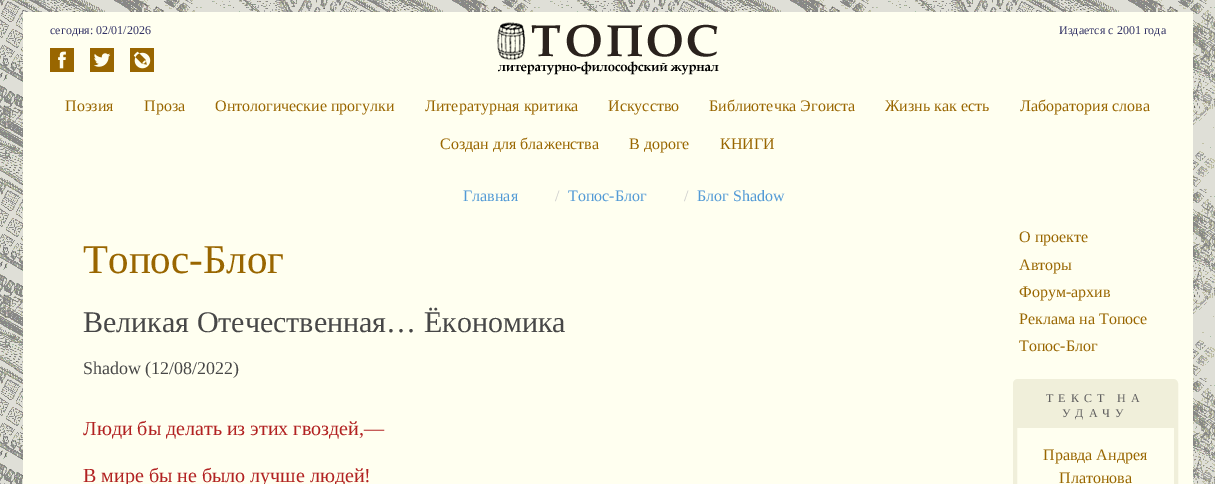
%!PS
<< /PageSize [1215 484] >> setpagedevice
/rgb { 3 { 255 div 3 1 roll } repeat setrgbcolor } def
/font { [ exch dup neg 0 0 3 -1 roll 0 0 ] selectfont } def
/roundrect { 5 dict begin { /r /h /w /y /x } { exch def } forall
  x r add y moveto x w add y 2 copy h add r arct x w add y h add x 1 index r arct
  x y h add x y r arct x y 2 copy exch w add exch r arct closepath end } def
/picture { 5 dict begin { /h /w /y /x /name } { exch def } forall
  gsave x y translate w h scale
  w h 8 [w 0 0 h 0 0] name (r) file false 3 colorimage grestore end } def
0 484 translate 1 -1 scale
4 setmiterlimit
255 255 255 rgb
0 0 1215 484 rectfill
(img/1.rgb) 0 0 1215 484 picture
255 255 240 rgb
23 12 1170 472 rectfill
(img/2.rgb) 497 22 222 53 picture
(img/3.rgb) 50 48 24 24 picture
(img/4.rgb) 90 48 24 24 picture
(img/5.rgb) 130 48 24 24 picture
240 239 218 rgb
4 setlinewidth
1015 381 161 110 3 roundrect stroke
1017 383 157 45 rectfill
/LiberationSerif-Regular 12 font
51 51 102 rgb
50 34 moveto (сегодня: 02/01/2026) show
1059 34 moveto (Издается с 2001 года) show
/LiberationSerif-Regular 16 font
153 102 0 rgb
[
  [(Поэзия) 65 111]
  [(Проза) 144 111]
  [(Онтологические прогулки) 215 111]
  [(Литературная критика) 425 111]
  [(Искусство) 608 111]
  [(Библиотечка Эгоиста) 709 111]
  [(Жизнь как есть) 885 111]
  [(Лаборатория слова) 1020 111]
  [(Создан для блаженства) 440 149]
  [(В дороге) 629 149]
  [(КНИГИ) 720 149]
] { aload pop moveto show } forall
82 154 214 rgb
463 201 moveto (Главная) show
204 204 204 rgb
555 201 moveto (/) show
82 154 214 rgb
568 201 moveto (Топос-Блог) show
204 204 204 rgb
684 201 moveto (/) show
82 154 214 rgb
697 201 moveto (Блог Shadow) show
/LiberationSerif-Regular 41 font
153 102 0 rgb
83 273 moveto (Топос-Блог) show
/LiberationSerif-Regular 30 font
71 71 71 rgb
83 332 moveto (Великая Отечественная… Ёкономика) show
/LiberationSerif-Regular 18 font
83 374 moveto (Shadow \(12/08/2022\)) show
/LiberationSerif-Regular 20 font
178 34 34 rgb
83 435 moveto (Люди бы делать из этих гвоздей,—) show
83 482 moveto (В мире бы не было лучше людей!) show
/LiberationSerif-Regular 16 font
153 102 0 rgb
[
  [(О проекте) 1019 242]
  [(Авторы) 1019 270]
  [(Форум-архив) 1019 297]
  [(Реклама на Топосе) 1019 324]
  [(Топос-Блог) 1019 351]
] { aload pop moveto show } forall
/LiberationSerif-Regular 12 font
97 96 96 rgb
1046 402 moveto 5 0 (ТЕКСТ НА) ashow
1062 417 moveto 5 0 (УДАЧУ) ashow
/LiberationSerif-Regular 16 font
153 102 0 rgb
1043 460 moveto (Правда Андрея) show
1059 483 moveto (Платонова) show
showpage
